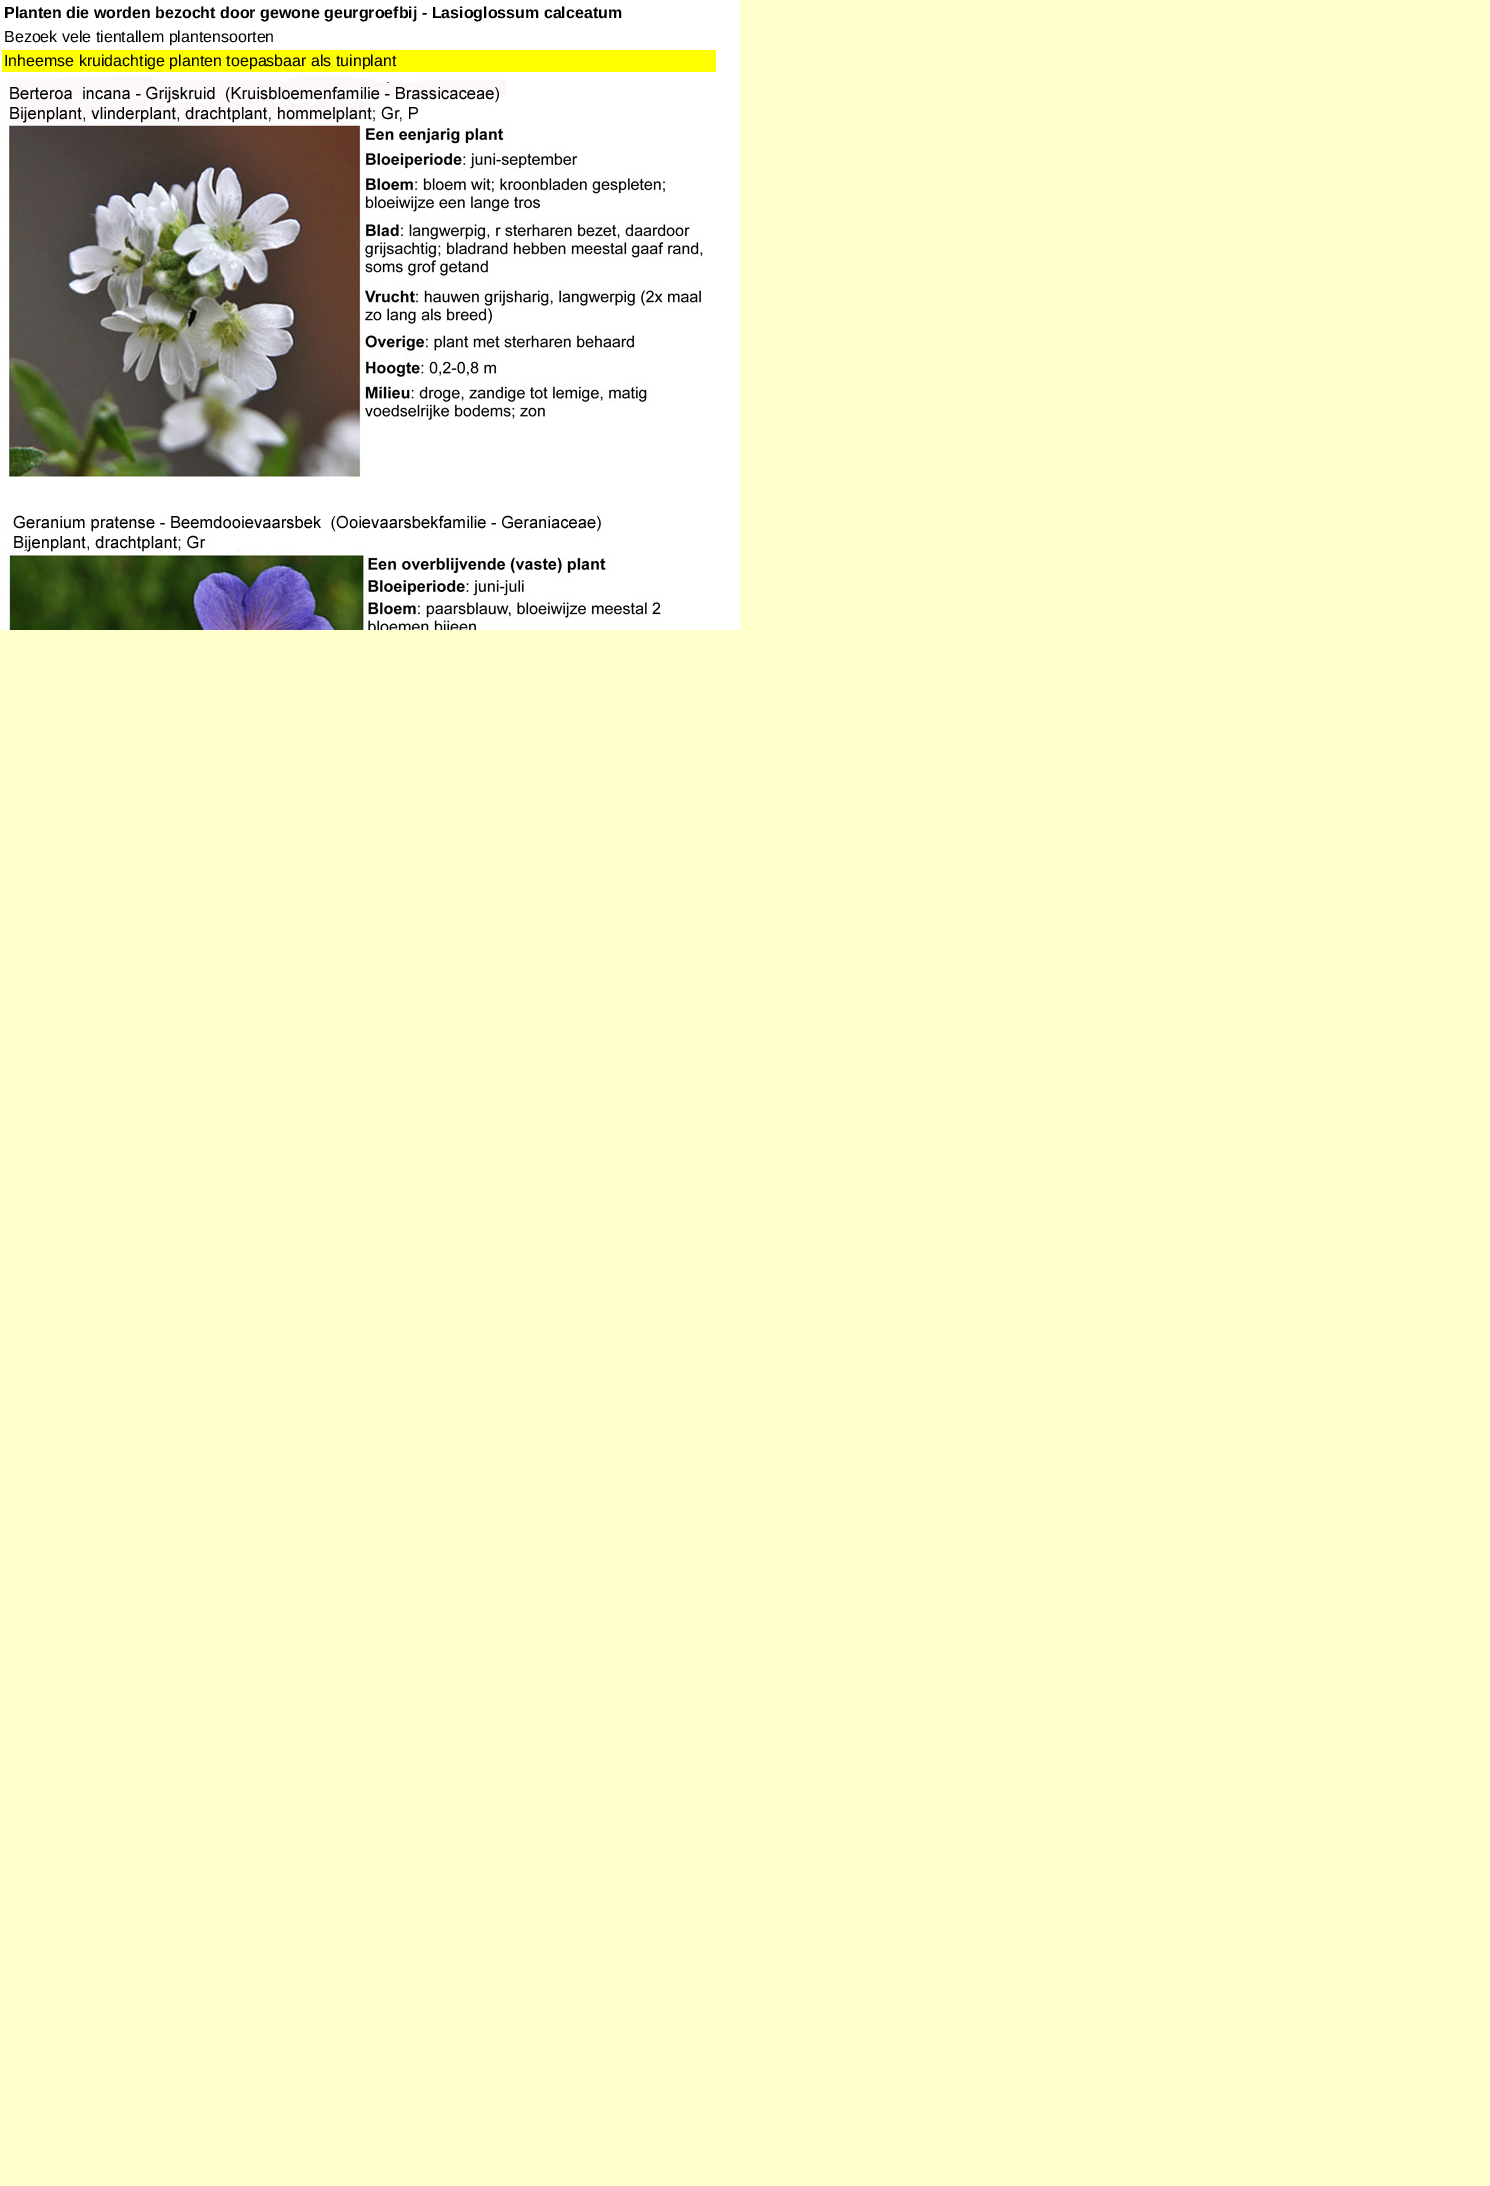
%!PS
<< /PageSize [1490 2186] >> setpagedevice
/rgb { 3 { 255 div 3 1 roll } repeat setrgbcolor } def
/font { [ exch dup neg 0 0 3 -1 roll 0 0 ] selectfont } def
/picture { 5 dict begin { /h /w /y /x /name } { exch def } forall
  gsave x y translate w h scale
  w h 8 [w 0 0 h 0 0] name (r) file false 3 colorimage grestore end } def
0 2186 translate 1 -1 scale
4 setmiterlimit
255 255 204 rgb
0 0 1490 2186 rectfill
255 255 255 rgb
0 0 740 630 rectfill
255 255 0 rgb
2 50 714 22 rectfill
(img/1.rgb) 4 76 699 401 picture
(img/2.rgb) 4 515 660 115 picture
/LiberationSans-Bold 16 font
0 0 0 rgb
4 18 moveto (Planten die worden bezocht door gewone geurgroefbij - Lasioglossum calceatum) show
/LiberationSans-Regular 16 font
4 42 moveto (Bezoek vele tientallem plantensoorten) show
4 66 moveto (Inheemse kruidachtige planten toepasbaar als tuinplant) show
showpage
